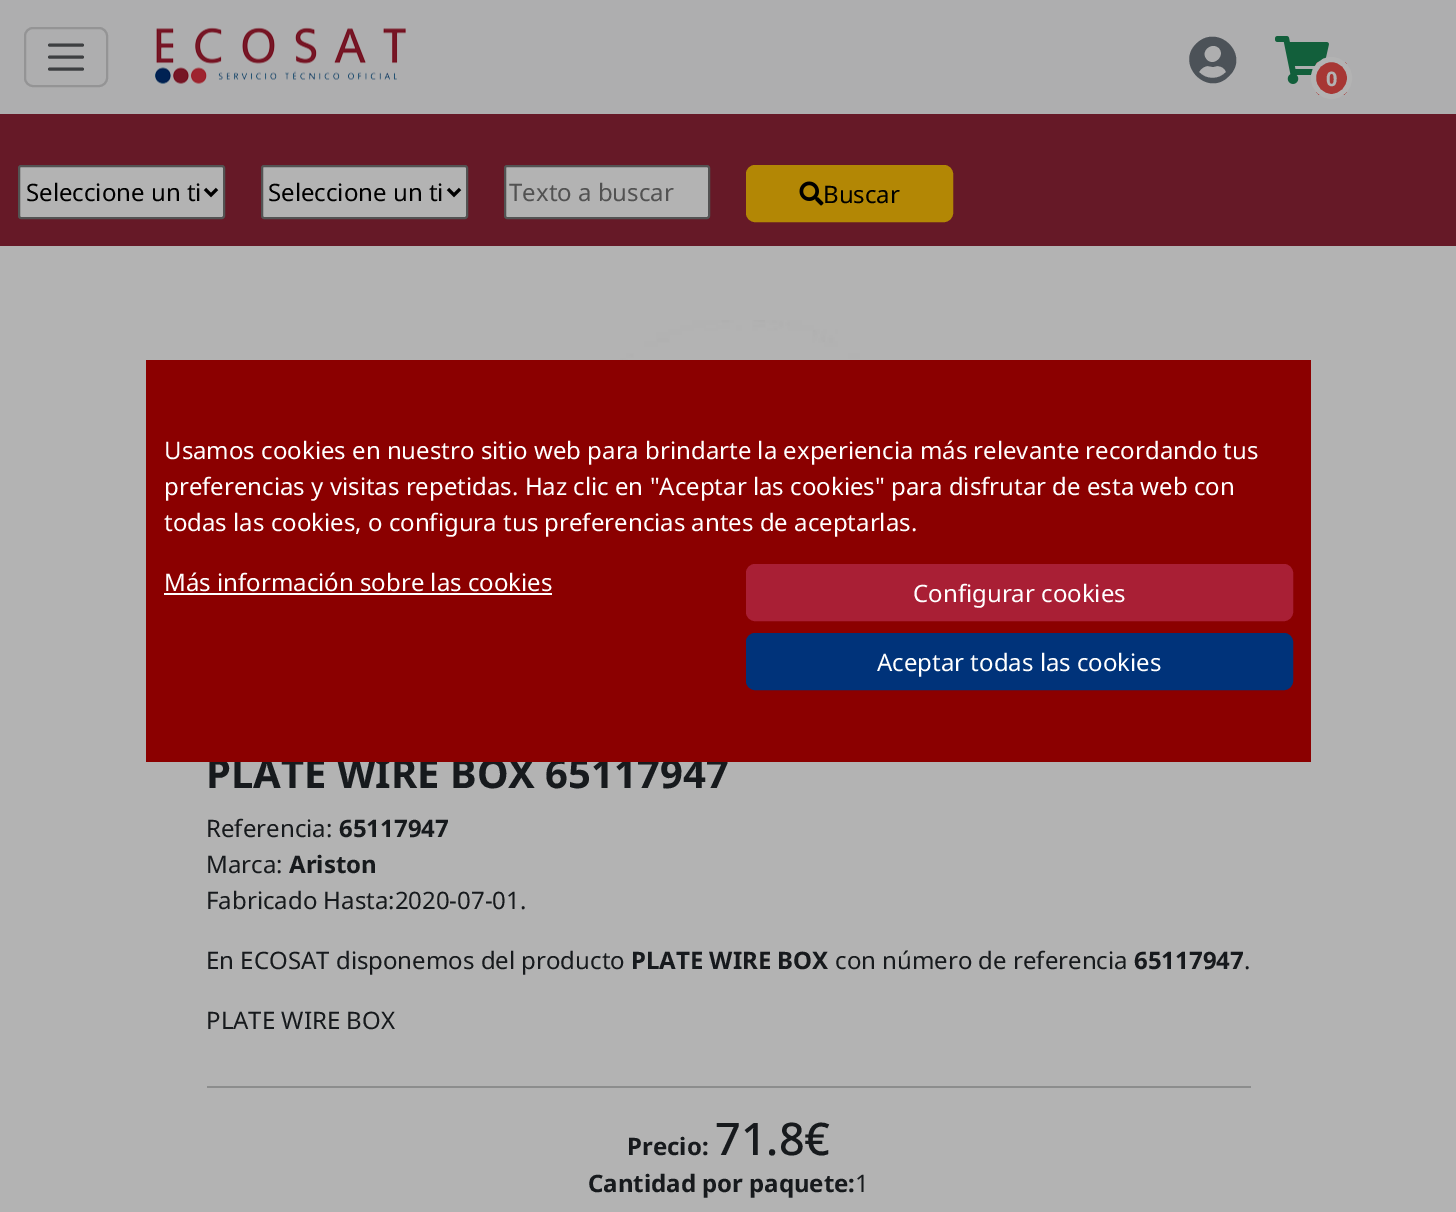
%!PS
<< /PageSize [1456 1212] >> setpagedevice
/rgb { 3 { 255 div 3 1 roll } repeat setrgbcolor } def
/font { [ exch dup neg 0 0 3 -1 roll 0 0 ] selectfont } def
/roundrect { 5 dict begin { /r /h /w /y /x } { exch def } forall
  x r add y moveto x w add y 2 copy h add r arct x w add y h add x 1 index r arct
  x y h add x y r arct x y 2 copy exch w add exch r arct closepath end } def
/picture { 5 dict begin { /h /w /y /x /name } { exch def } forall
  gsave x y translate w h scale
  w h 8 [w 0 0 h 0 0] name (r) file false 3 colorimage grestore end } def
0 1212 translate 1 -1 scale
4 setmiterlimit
179 179 179 rgb
0 0 1456 1212 rectfill
174 174 175 rgb
0 0 1456 114 rectfill
148 148 149 rgb
2 setlinewidth
25 28 82 58 8 roundrect stroke
61 63 65 rgb
3 setlinewidth
1 setlinecap
49.5 45 moveto 82.5 45 lineto 49.5 57 moveto 82.5 57 lineto 49.5 69 moveto 82.5 69 lineto stroke
(img/1.rgb) 155 27 251 57 picture
76 82 88 rgb
1196 44 moveto 1218 22 1251 55 1229 76 curveto 1208 98 1175 65 1196 44 curveto closepath 1219 48 moveto 1211 41 1199 52 1207 60 curveto 1214 67 1226 56 1219 48 curveto closepath 1199 72 moveto 1206 80 1219 80 1226 72 curveto 1225 68 1221 66 1217 66 curveto 1213 67 lineto 1208 66 lineto 1205 66 1201 68 1199 72 curveto closepath fill
(img/2.rgb) 1275 36 54 48 picture
gsave
1311 57 41 42 20.5 roundrect clip newpath
gsave 1316 62 moveto 1347 62 lineto 1347 95 lineto 1316 95 lineto closepath clip newpath 1331 78 translate 22 23 scale
<< /ShadingType 3 /ColorSpace /DeviceRGB /Coords [0 0 0 0 0 1] /Extend [true true] /Function << /FunctionType 3 /Domain [0 1] /Functions [<< /FunctionType 2 /Domain [0 1] /C0 [0.655 0.216 0.204] /C1 [0.655 0.216 0.204] /N 1 >> << /FunctionType 2 /Domain [0 1] /C0 [0.655 0.216 0.204] /C1 [0.655 0.216 0.204] /N 1 >> << /FunctionType 2 /Domain [0 1] /C0 [0.702 0.702 0.702] /C1 [0.702 0.702 0.702] /N 1 >>] /Bounds [0.01 0.98] /Encode [0 1 0 1 0 1] >> >> shfill grestore
grestore
179 179 179 rgb
5 setlinewidth
0 setlinecap
1313.5 59.5 36 37 18 roundrect stroke
102 25 39 rgb
0 114 1456 132 rectfill
179 179 179 rgb
19 166 205 52 2 roundrect gsave fill grestore
83 83 83 rgb
2 setlinewidth
stroke
0 0 0 rgb
3 setlinewidth
205 189 moveto 211 195 lineto 217 189 lineto stroke
179 179 179 rgb
262 166 205 52 2 roundrect gsave fill grestore
83 83 83 rgb
2 setlinewidth
stroke
0 0 0 rgb
3 setlinewidth
448 189 moveto 454 195 lineto 460 189 lineto stroke
179 179 179 rgb
505 166 204 52 2 roundrect gsave fill grestore
83 83 83 rgb
2 setlinewidth
stroke
179 135 5 rgb
747 166 205 55 8 roundrect gsave fill grestore
stroke
(img/3.rgb) 799 181 25 25 picture
(img/4.rgb) 612 320 248 40 picture
140 141 141 rgb
207 1086 1044 2 rectfill
/NotoSans-Bold 20 font
179 179 179 rgb
1326 86 moveto (0) show
/NotoSans-Regular 24 font
0 0 0 rgb
26 201 moveto (Seleccione un ti) show
268 201 moveto (Seleccione un ti) show
82 82 82 rgb
509 201 moveto (Texto a buscar) show
0 0 0 rgb
823 203 moveto (Buscar) show
/NotoSans-Bold 40 font
23 26 29 rgb
206 788 moveto (PLATE WIRE BOX 65117947) show
139 0 0 rgb
146 360 1165 402 rectfill
0 51 122 rgb
747 634 545 55 8 roundrect gsave fill grestore
stroke
/NotoSans-Regular 24 font
255 255 255 rgb
877 671 moveto (Aceptar todas las cookies) show
169 31 53 rgb
747 565 545 55 8 roundrect gsave fill grestore
stroke
255 255 255 rgb
913 602 moveto (Configurar cookies) show
164 591 moveto (Más información sobre las cookies) show
164 593 388 2 rectfill
[
  [(todas las cookies, o configura tus preferencias antes de aceptarlas.) 164 531]
  [(preferencias y visitas repetidas. Haz clic en "Aceptar las cookies" para disfrutar de esta web con) 164 495]
  [(Usamos cookies en nuestro sitio web para brindarte la experiencia más relevante recordando tus) 164 459]
] { aload pop moveto show } forall
23 26 29 rgb
206 837 moveto (Referencia:) show
/NotoSans-Bold 24 font
339 837 moveto (65117947) show
/NotoSans-Regular 24 font
206 873 moveto (Marca:) show
/NotoSans-Bold 24 font
289 873 moveto (Ariston) show
/NotoSans-Regular 24 font
206 909 moveto (Fabricado Hasta:2020-07-01.) show
206 969 moveto (En ECOSAT disponemos del producto) show
/NotoSans-Bold 24 font
631 969 moveto (PLATE WIRE BOX) show
/NotoSans-Regular 24 font
835 969 moveto (con número de referencia) show
/NotoSans-Bold 24 font
1134 969 moveto (65117947) show
/NotoSans-Regular 24 font
1244 969 moveto (.) show
206 1029 moveto (PLATE WIRE BOX) show
/NotoSans-Bold 24 font
627 1155 moveto (Precio:) show
/NotoSans-Medium 45 font
715 1155 moveto (71.8€) show
/NotoSans-Bold 24 font
588 1192 moveto (Cantidad por paquete:) show
/NotoSans-Regular 24 font
855 1192 moveto (1) show
showpage
